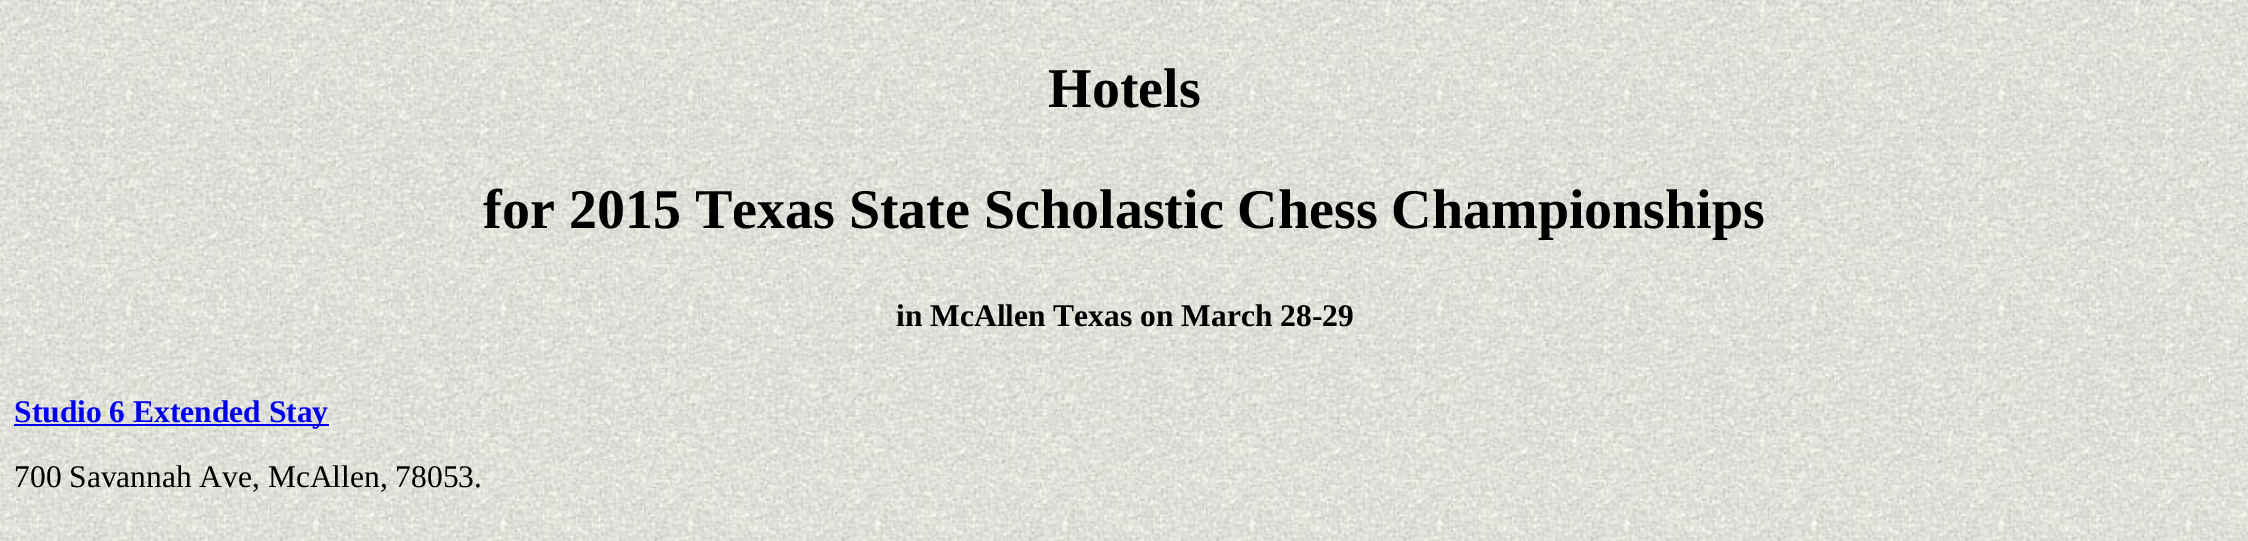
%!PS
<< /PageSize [2248 541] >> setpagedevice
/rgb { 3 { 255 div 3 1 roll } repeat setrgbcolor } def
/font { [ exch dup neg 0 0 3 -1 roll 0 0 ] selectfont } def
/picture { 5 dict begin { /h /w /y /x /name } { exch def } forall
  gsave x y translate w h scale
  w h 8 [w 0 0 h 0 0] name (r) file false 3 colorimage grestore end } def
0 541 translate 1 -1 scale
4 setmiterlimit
255 255 255 rgb
0 0 2248 541 rectfill
(img/1.rgb) 0 0 2248 541 picture
0 0 238 rgb
14 424 315 2 rectfill
/LiberationSerif-Bold 56 font
0 0 0 rgb
1048 107 moveto (Hotels) show
483 228 moveto (for 2015 Texas State Scholastic Chess Championships) show
/LiberationSerif-Bold 31.5 font
896 326 moveto (in McAllen Texas on March 28-29) show
0 0 238 rgb
14 422 moveto (Studio 6 Extended Stay) show
/LiberationSerif-Regular 31.5 font
0 0 0 rgb
14 487 moveto (700 Savannah Ave, McAllen, 78053.) show
showpage
